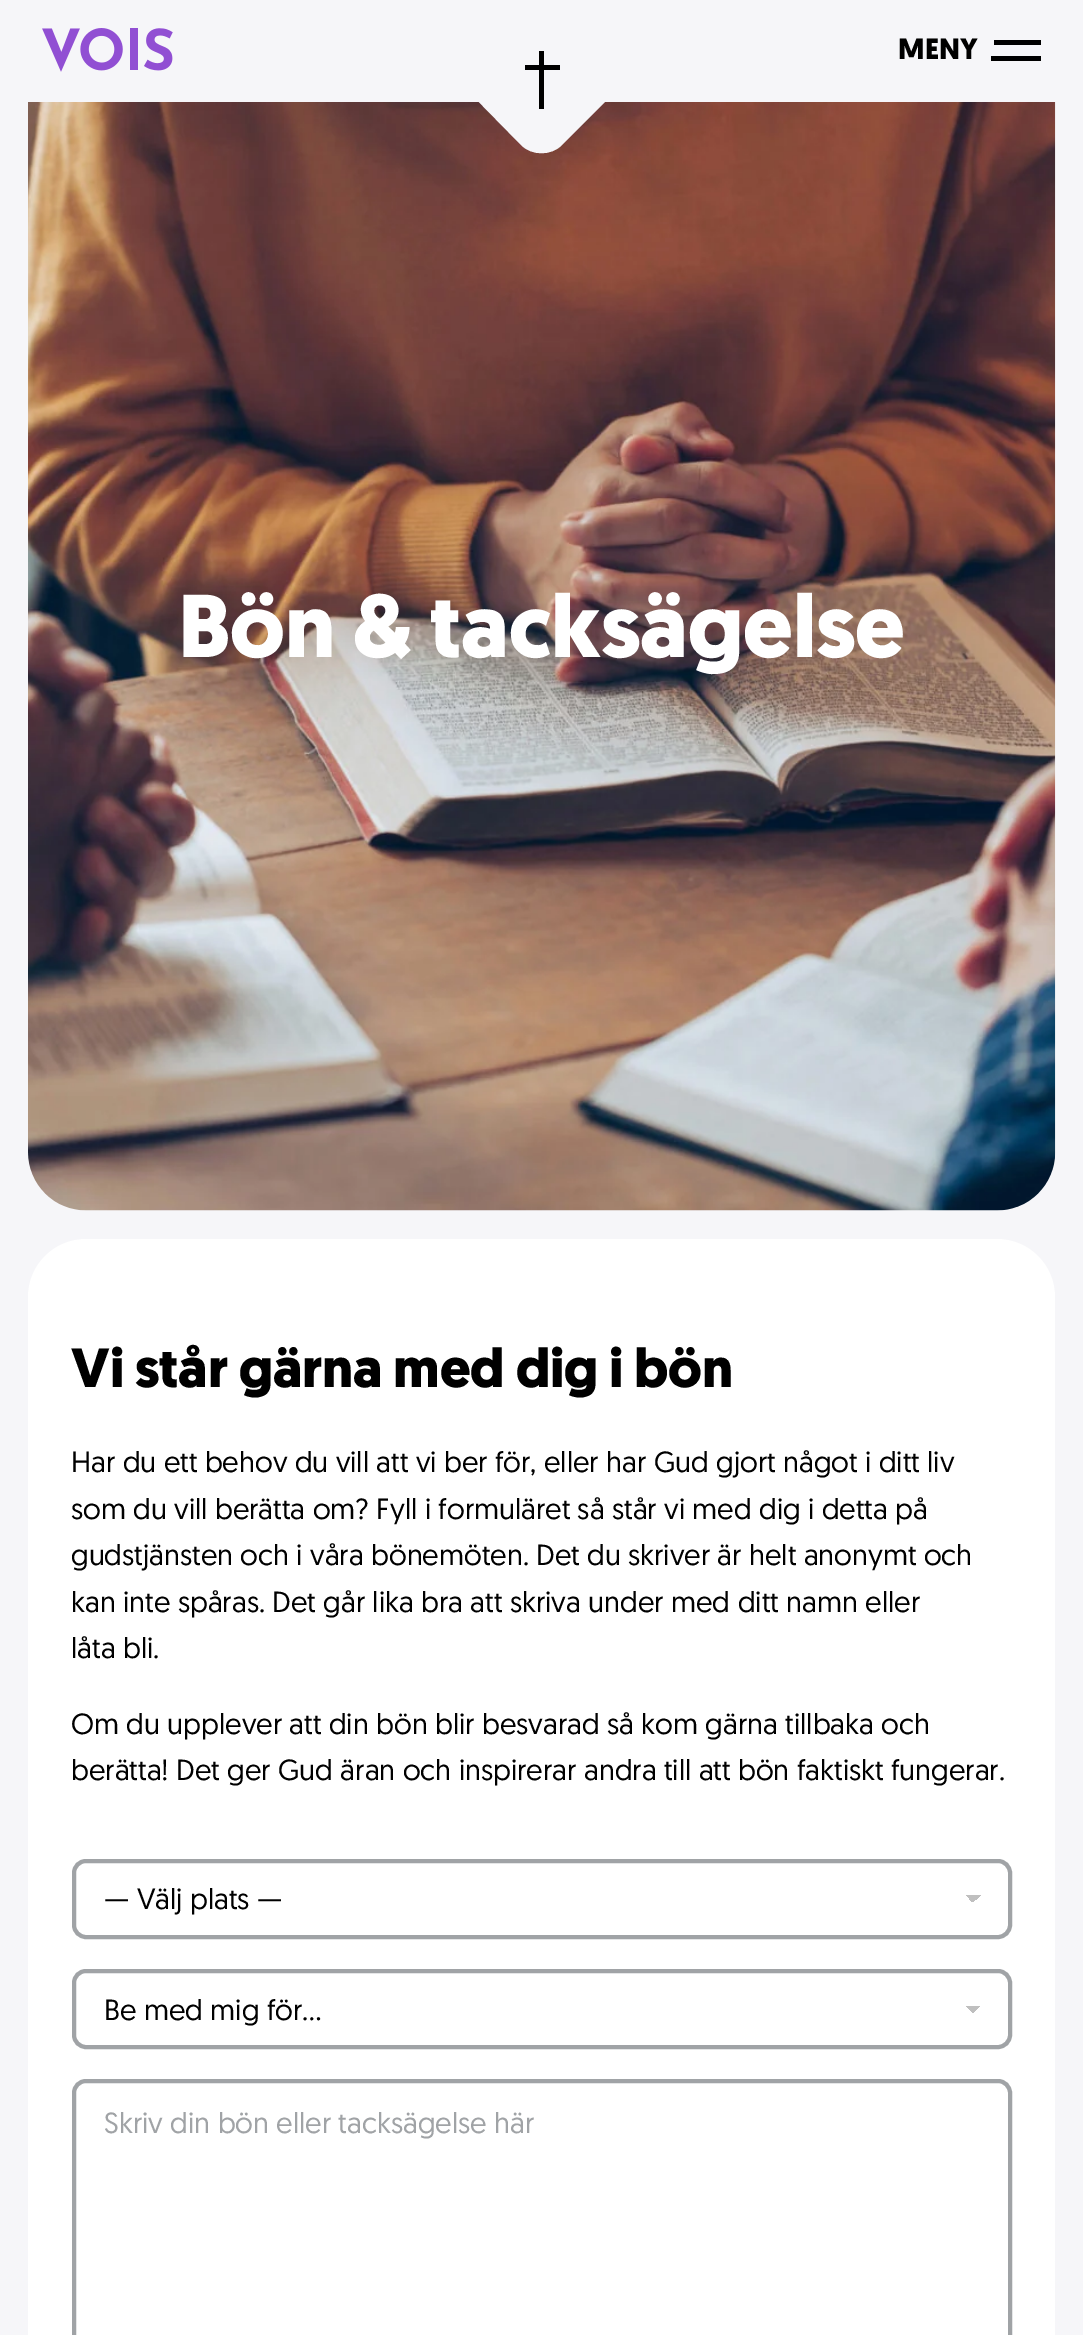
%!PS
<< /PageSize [1083 2335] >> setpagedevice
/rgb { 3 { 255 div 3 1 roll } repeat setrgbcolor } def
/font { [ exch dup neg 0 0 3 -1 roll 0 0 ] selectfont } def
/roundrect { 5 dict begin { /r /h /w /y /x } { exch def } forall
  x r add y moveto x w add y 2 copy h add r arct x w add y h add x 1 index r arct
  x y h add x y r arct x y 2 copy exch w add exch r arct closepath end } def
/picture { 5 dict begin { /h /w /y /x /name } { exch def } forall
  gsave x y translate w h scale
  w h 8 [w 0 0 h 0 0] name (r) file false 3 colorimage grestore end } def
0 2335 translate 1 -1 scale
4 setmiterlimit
246 246 249 rgb
0 0 1083 2335 rectfill
(img/1.rgb) 42 28 131 44 picture
(img/2.rgb) 28 102 1028 1109 picture
562 1 moveto 614 52 lineto 625 64 625 82 614 93 curveto 562 145 lineto 551 156 532 156 521 145 curveto 470 93 lineto 458 82 458 64 470 52 curveto 521 1 lineto 532 -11 551 -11 562 1 curveto closepath fill
[
  [525 65 35 5 0 0 0]
  [539 51 5 58 0 0 0]
  [994 40 47 5 0 0 0]
  [991 56 50 5 0 0 0]
] { aload pop rgb rectfill } forall
255 255 255 rgb
28 1239 1027 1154 58 roundrect fill
gsave 973 1895 moveto 981 1895 lineto 981 1902 lineto 973 1902 lineto closepath clip newpath
<< /ShadingType 2 /ColorSpace /DeviceRGB /Coords [973 1894 982 1903] /Extend [true true] /Function << /FunctionType 3 /Domain [0 1] /Functions [<< /FunctionType 2 /Domain [0 1] /C0 [0.749 0.749 0.749] /C1 [0.749 0.749 0.749] /N 1 >> << /FunctionType 2 /Domain [0 1] /C0 [1 1 1] /C1 [1 1 1] /N 1 >>] /Bounds [0.5] /Encode [0 1 0 1] >> >> shfill grestore
gsave 966 1895 moveto 973 1895 lineto 973 1902 lineto 966 1902 lineto closepath clip newpath
<< /ShadingType 2 /ColorSpace /DeviceRGB /Coords [964 1903 973 1894] /Extend [true true] /Function << /FunctionType 3 /Domain [0 1] /Functions [<< /FunctionType 2 /Domain [0 1] /C0 [1 1 1] /C1 [1 1 1] /N 1 >> << /FunctionType 2 /Domain [0 1] /C0 [0.749 0.749 0.749] /C1 [0.749 0.749 0.749] /N 1 >>] /Bounds [0.5] /Encode [0 1 0 1] >> >> shfill grestore
160 163 166 rgb
4 setlinewidth
74 1861 936 76 12 roundrect stroke
gsave 973 2006 moveto 982 2006 lineto 982 2013 lineto 973 2013 lineto closepath clip newpath
<< /ShadingType 2 /ColorSpace /DeviceRGB /Coords [973 2005 982 2013] /Extend [true true] /Function << /FunctionType 3 /Domain [0 1] /Functions [<< /FunctionType 2 /Domain [0 1] /C0 [0.749 0.749 0.749] /C1 [0.749 0.749 0.749] /N 1 >> << /FunctionType 2 /Domain [0 1] /C0 [1 1 1] /C1 [1 1 1] /N 1 >>] /Bounds [0.5] /Encode [0 1 0 1] >> >> shfill grestore
gsave 964 2006 moveto 973 2006 lineto 973 2013 lineto 964 2013 lineto closepath clip newpath
<< /ShadingType 2 /ColorSpace /DeviceRGB /Coords [964 2013 973 2005] /Extend [true true] /Function << /FunctionType 3 /Domain [0 1] /Functions [<< /FunctionType 2 /Domain [0 1] /C0 [1 1 1] /C1 [1 1 1] /N 1 >> << /FunctionType 2 /Domain [0 1] /C0 [0.749 0.749 0.749] /C1 [0.749 0.749 0.749] /N 1 >>] /Bounds [0.5] /Encode [0 1 0 1] >> >> shfill grestore
74 1971 936 76 12 roundrect stroke
74 2081 936 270 12 roundrect stroke
/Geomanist-Bold 29.1 font
0 0 0 rgb
898 59 moveto (MENY) show
/Geomanist-Bold 89 font
255 255 255 rgb
178 657 moveto (Bön & tacksägelse) show
/Geomanist-Bold 54.9 font
0 0 0 rgb
71 1387 moveto (Vi står gärna med dig i bön) show
/Geomanist-Regular 29.1 font
[
  [(Har du ett behov du vill att vi ber för, eller har Gud gjort något i ditt liv) 71 1472]
  [(som du vill berätta om? Fyll i formuläret så står vi med dig i detta på) 71 1519]
  [(gudstjänsten och i våra bönemöten. Det du skriver är helt anonymt och) 71 1565]
  [(kan inte spåras. Det går lika bra att skriva under med ditt namn eller) 71 1612]
  [(låta bli.) 71 1658]
  [(Om du upplever att din bön blir besvarad så kom gärna tillbaka och) 71 1734]
  [(berätta! Det ger Gud äran och inspirerar andra till att bön faktiskt fungerar.) 71 1780]
  [(— Välj plats —) 104 1909]
  [(Be med mig för…) 104 2020]
] { aload pop moveto show } forall
160 163 166 rgb
104 2133 moveto (Skriv din bön eller tacksägelse här) show
showpage
